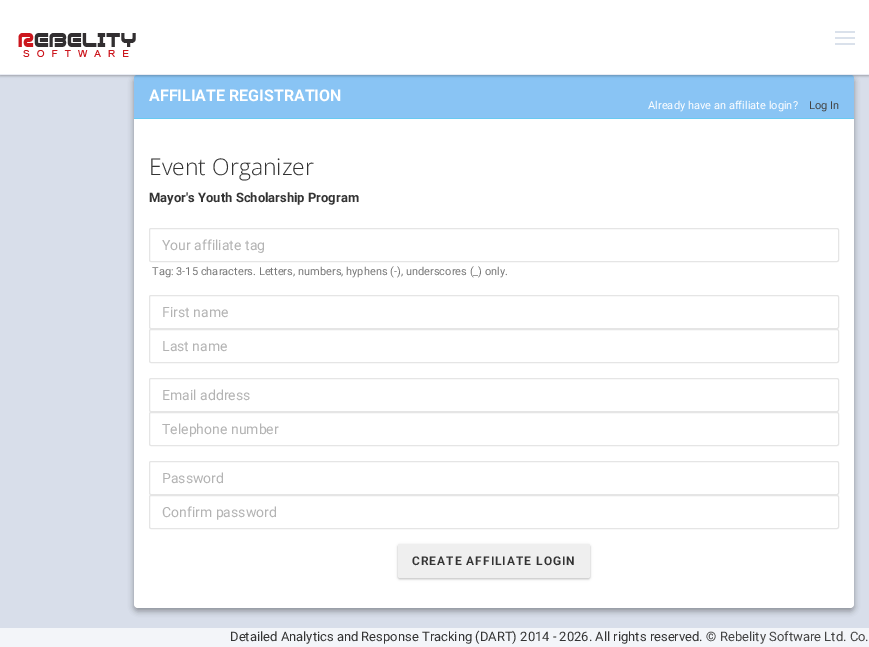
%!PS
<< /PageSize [869 647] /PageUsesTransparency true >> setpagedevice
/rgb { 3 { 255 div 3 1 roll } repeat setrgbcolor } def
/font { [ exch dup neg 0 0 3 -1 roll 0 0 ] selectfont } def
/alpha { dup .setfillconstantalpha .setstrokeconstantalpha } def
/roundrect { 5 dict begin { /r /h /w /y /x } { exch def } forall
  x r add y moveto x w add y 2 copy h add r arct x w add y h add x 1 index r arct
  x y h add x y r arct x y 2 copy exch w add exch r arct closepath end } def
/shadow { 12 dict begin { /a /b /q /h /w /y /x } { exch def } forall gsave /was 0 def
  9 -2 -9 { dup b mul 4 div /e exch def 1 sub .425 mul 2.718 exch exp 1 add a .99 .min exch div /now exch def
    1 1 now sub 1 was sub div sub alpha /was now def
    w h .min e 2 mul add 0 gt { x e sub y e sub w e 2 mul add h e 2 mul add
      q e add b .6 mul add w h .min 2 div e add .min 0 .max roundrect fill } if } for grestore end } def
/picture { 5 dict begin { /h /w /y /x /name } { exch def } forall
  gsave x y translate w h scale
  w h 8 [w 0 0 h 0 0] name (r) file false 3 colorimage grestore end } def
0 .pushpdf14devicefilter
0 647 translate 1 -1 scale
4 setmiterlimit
243 245 249 rgb
0 0 869 647 rectfill
216 222 234 rgb
0 75 869 553 rectfill
0 0 0 rgb
134 78 720 533 4 3 0.22 shadow
134 78 720 533 4 3 0.16 shadow
255 255 255 rgb
134 75 720 533 4 roundrect fill
137 196 244 rgb
137 75 moveto 851 75 lineto 852.5 75 854 76.5 854 78 curveto 854 119 lineto 134 119 lineto 134 78 lineto 134 76.5 135.5 75 137 75 curveto closepath fill
0 0 0 rgb
0 1 869 75 0 1 0.18 shadow
0 1 869 75 0 1.5 0.1 shadow
255 255 255 rgb
0 0 869 74 rectfill
233 236 243 rgb
0 74 869 1 rectfill
(img/1.rgb) 18 33 118 24 picture
(img/2.rgb) 835 31 20 14 picture
104 202 241 rgb
134 118 720 1 rectfill
229 229 229 rgb
149.5 228.5 689 33 1.5 roundrect stroke
149.5 295.5 689 33 1.5 roundrect stroke
149.5 329.5 689 33 1.5 roundrect stroke
149.5 378.5 689 33 1.5 roundrect stroke
149.5 412.5 689 33 1.5 roundrect stroke
149.5 461.5 689 33 1.5 roundrect stroke
149.5 495.5 689 33 1.5 roundrect stroke
0 0 0 rgb
398 545 192 34 2 1 0.18 shadow
398 545 192 34 2 1.5 0.1 shadow
239 239 239 rgb
398 544 192 34 2 roundrect fill
/Roboto-Bold 16 font
255 255 255 rgb
149 101 moveto (AFFILIATE REGISTRATION) show
/Roboto-Regular 11.05 font
648 109 moveto (Already have an affiliate login?) show
68 68 68 rgb
809 109 moveto (Log In) show
/OpenSans-Light 23 font
51 51 51 rgb
149 175 moveto (Event Organizer) show
/Roboto-Bold 13 font
149 202 moveto (Mayor's Youth Scholarship Program) show
/Roboto-Regular 14 font
179 179 179 rgb
162 250 moveto (Your affiliate tag) show
/Roboto-Regular 11.05 font
119 119 119 rgb
152 275 moveto (Tag: 3-15 characters. Letters, numbers, hyphens \(-\), underscores \(_\) only.) show
/Roboto-Regular 14 font
179 179 179 rgb
[
  [(First name) 162 317]
  [(Last name) 162 351]
  [(Email address) 162 400]
  [(Telephone number) 162 434]
  [(Password) 162 483]
  [(Confirm password) 162 517]
] { aload pop moveto show } forall
/Roboto-SemiBold 12 font
51 51 51 rgb
412 565 moveto 1 0 (CREATE AFFILIATE LOGIN) ashow
/Roboto-Regular 13 font
230 641 moveto (Detailed Analytics and Response Tracking \(DART\) 2014 - 2026. All rights reserved. ©) show
68 68 68 rgb
720 641 moveto (Rebelity Software Ltd. Co.) show
.poppdf14devicefilter showpage
